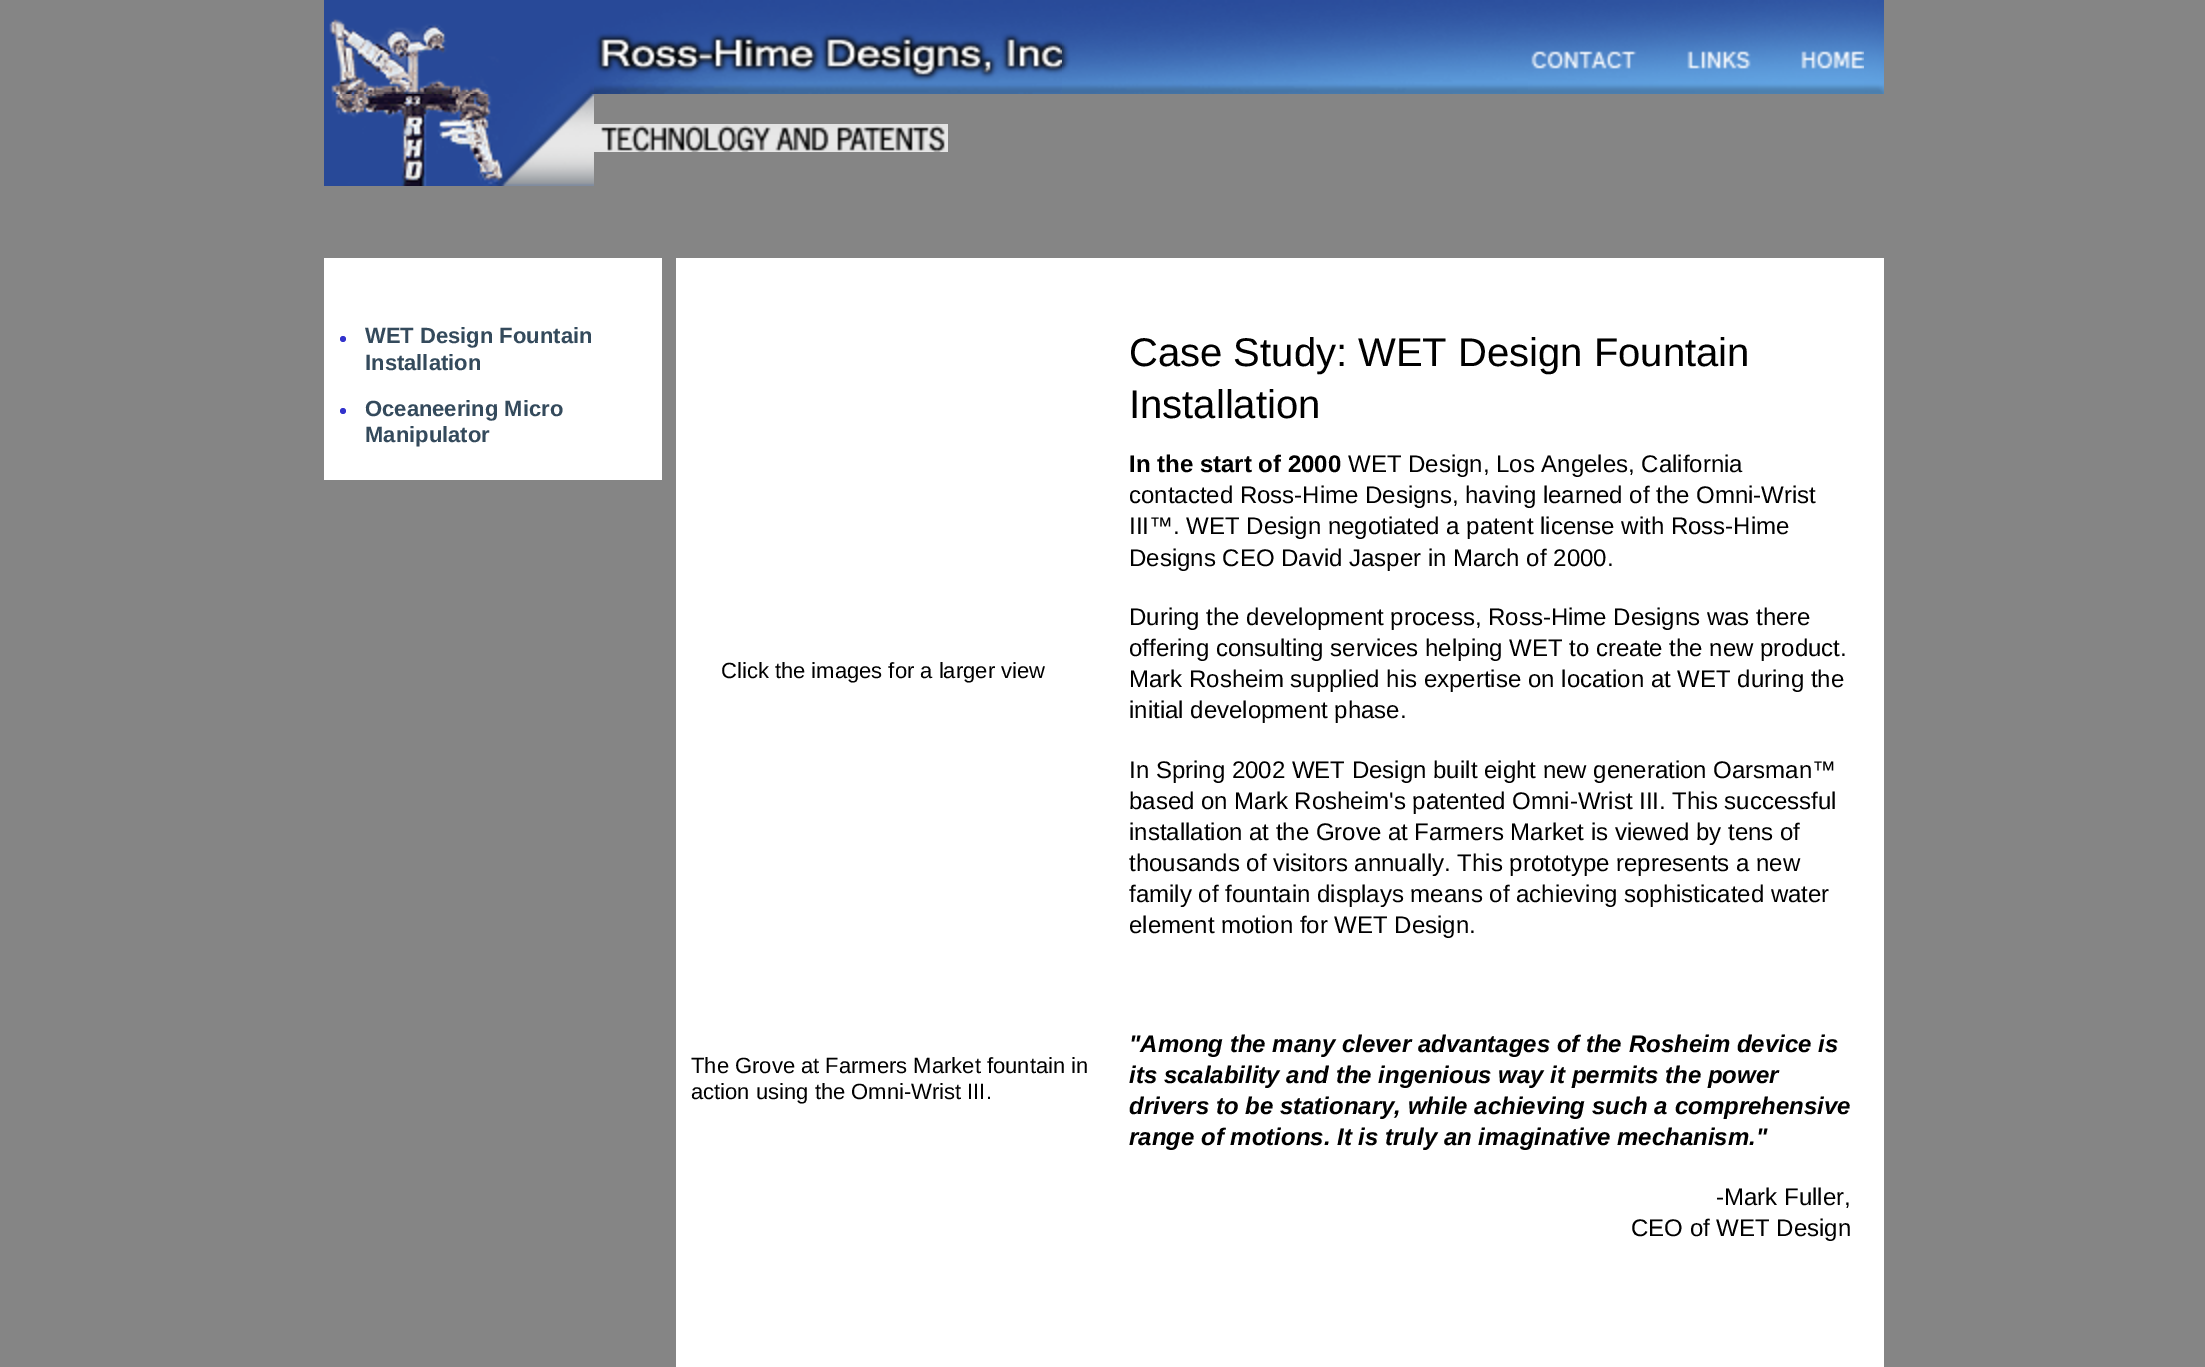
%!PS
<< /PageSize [2205 1367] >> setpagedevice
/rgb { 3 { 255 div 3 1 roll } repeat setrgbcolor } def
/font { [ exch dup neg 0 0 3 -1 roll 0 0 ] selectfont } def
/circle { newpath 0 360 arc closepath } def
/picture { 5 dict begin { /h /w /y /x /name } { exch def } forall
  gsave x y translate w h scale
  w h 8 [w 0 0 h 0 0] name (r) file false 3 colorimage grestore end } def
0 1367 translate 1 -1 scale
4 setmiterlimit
133 133 133 rgb
0 0 2205 1367 rectfill
(img/1.rgb) 324 0 270 94 picture
(img/2.rgb) 594 0 468 94 picture
(img/3.rgb) 1062 0 466 94 picture
(img/4.rgb) 1528 0 110 94 picture
(img/5.rgb) 1638 0 38 94 picture
(img/6.rgb) 1676 0 82 94 picture
(img/7.rgb) 1758 0 38 94 picture
(img/8.rgb) 1796 0 68 94 picture
(img/9.rgb) 1864 0 20 94 picture
(img/10.rgb) 324 94 270 92 picture
(img/11.rgb) 594 124 354 28 picture
255 255 255 rgb
324 258 338 222 rectfill
51 51 204 rgb
343 339 3 circle fill
343 411 3 circle fill
255 255 255 rgb
676 258 1208 1109 rectfill
/LiberationSans-Bold 22 font
52 74 92 rgb
[
  [(WET Design Fountain) 365 343]
  [(Installation) 365 370]
  [(Oceaneering Micro) 365 416]
  [(Manipulator) 365 442]
] { aload pop moveto show } forall
/LiberationSans-Regular 22 font
0 0 0 rgb
[
  [(Click the images for a larger view) 721 678]
  [(The Grove at Farmers Market fountain in) 691 1073]
  [(action using the Omni-Wrist III.) 691 1099]
] { aload pop moveto show } forall
/LiberationSans-Regular 40 font
1129 366 moveto (Case Study: WET Design Fountain) show
1129 418 moveto (Installation) show
/LiberationSans-Bold 24 font
1129 472 moveto (In the start of 2000) show
/LiberationSans-Regular 24 font
[
  [(WET Design, Los Angeles, California) 1348 472]
  [(contacted Ross-Hime Designs, having learned of the Omni-Wrist) 1129 503]
  [(III™. WET Design negotiated a patent license with Ross-Hime) 1129 534]
  [(Designs CEO David Jasper in March of 2000.) 1129 566]
  [(During the development process, Ross-Hime Designs was there) 1129 625]
  [(offering consulting services helping WET to create the new product.) 1129 656]
  [(Mark Rosheim supplied his expertise on location at WET during the) 1129 687]
  [(initial development phase.) 1129 718]
  [(In Spring 2002 WET Design built eight new generation Oarsman™) 1129 778]
  [(based on Mark Rosheim's patented Omni-Wrist III. This successful) 1129 809]
  [(installation at the Grove at Farmers Market is viewed by tens of) 1129 840]
  [(thousands of visitors annually. This prototype represents a new) 1129 871]
  [(family of fountain displays means of achieving sophisticated water) 1129 902]
  [(element motion for WET Design.) 1129 933]
] { aload pop moveto show } forall
/LiberationSans-BoldItalic 24 font
[
  [("Among the many clever advantages of the Rosheim device is) 1129 1052]
  [(its scalability and the ingenious way it permits the power) 1129 1083]
  [(drivers to be stationary, while achieving such a comprehensive) 1129 1114]
  [(range of motions. It is truly an imaginative mechanism.") 1129 1145]
] { aload pop moveto show } forall
/LiberationSans-Regular 24 font
1716 1205 moveto (-Mark Fuller,) show
1631 1236 moveto (CEO of WET Design) show
showpage
